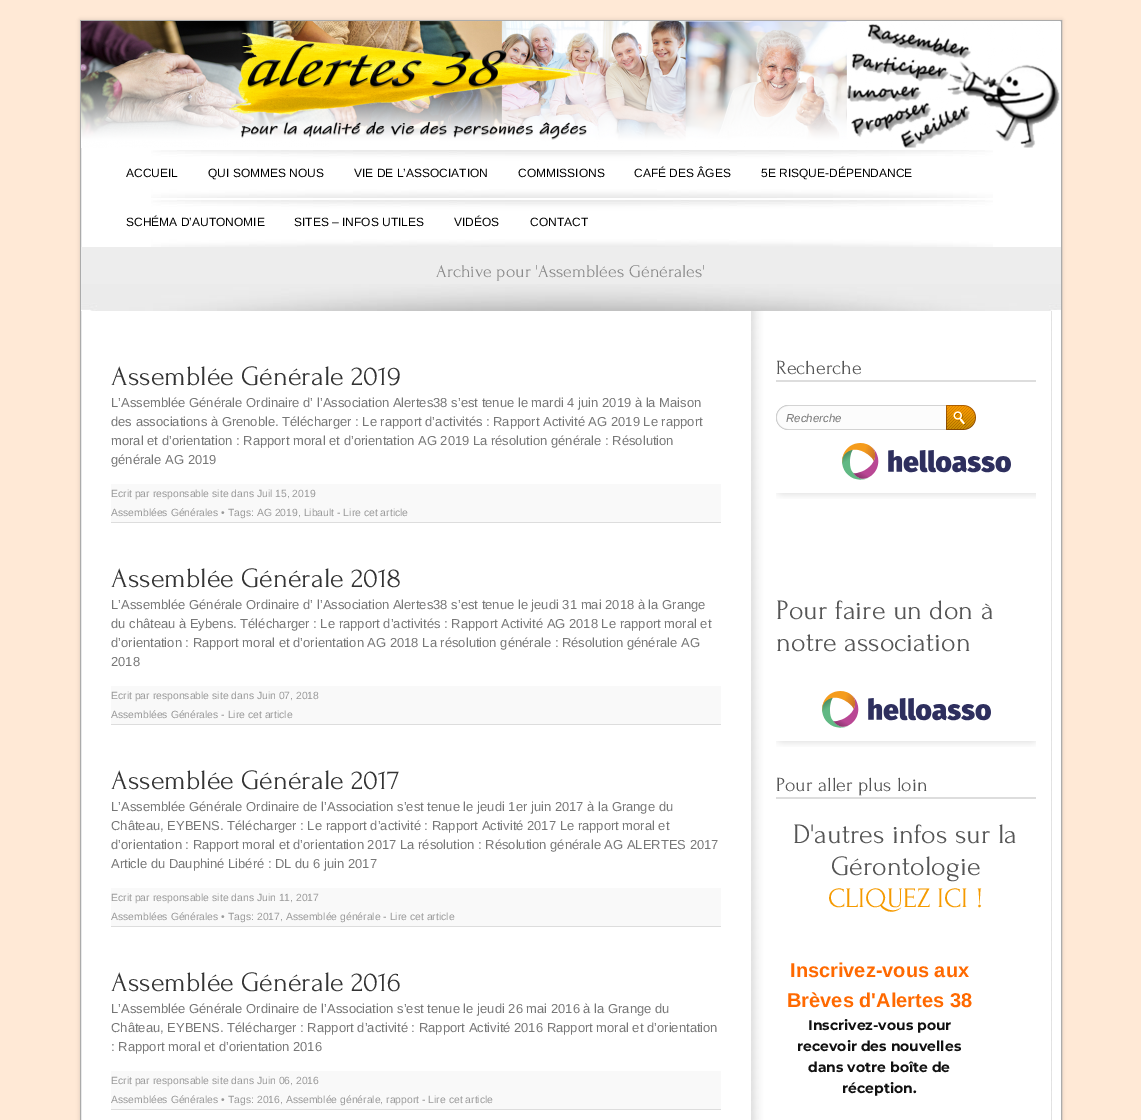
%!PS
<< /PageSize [1141 1120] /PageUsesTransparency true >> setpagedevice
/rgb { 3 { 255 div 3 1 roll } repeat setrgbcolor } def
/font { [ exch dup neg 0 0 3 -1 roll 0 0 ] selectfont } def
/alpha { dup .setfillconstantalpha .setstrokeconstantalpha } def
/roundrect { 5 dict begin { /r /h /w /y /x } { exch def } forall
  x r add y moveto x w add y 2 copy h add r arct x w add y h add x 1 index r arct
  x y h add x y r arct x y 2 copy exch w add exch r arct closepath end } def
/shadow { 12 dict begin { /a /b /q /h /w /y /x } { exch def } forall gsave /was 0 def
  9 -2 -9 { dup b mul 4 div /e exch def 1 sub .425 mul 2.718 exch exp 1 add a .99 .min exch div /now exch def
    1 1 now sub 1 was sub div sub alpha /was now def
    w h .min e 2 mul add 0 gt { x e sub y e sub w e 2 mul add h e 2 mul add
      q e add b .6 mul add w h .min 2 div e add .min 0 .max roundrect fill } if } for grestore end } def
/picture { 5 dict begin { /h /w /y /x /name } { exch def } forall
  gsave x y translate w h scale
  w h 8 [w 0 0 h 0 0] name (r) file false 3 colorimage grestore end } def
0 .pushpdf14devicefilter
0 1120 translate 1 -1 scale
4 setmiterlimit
255 233 214 rgb
0 0 1141 1120 rectfill
0 0 0 rgb
80 20 982 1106 0 2 0.15 shadow
255 255 255 rgb
80.5 20.5 moveto 1061.5 20.5 lineto 1061.5 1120.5 lineto 80.5 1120.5 lineto closepath gsave fill grestore
171 171 171 rgb
stroke
(img/1.rgb) 81 21 979 127 picture
(img/2.rgb) 151 150 842 97 picture
237 237 237 rgb
81 247 980 37 rectfill
(img/3.rgb) 81 284 980 27 picture
[
  [111 484 610 38 249 249 249]
  [111 522 610 1 221 221 221]
  [111 686 610 38 249 249 249]
  [111 724 610 1 221 221 221]
  [111 888 610 38 249 249 249]
  [111 926 610 1 221 221 221]
  [111 1071 610 38 249 249 249]
  [111 1109 610 1 221 221 221]
] { aload pop rgb rectfill } forall
(img/4.rgb) 751 311 301 809 picture
776 380 260 2 rectfill
(img/5.rgb) 776 405 170 25 picture
(img/6.rgb) 946 405 30 25 picture
(img/7.rgb) 776 443 260 56 picture
(img/8.rgb) 776 691 260 56 picture
776 797 260 2 rectfill
/LiberationSans-Regular 12 font
0 0 0 rgb
[
  [(ACCUEIL) 126 177]
  [(QUI SOMMES NOUS) 208 177]
  [(VIE DE L’ASSOCIATION) 354 177]
  [(COMMISSIONS) 518 177]
  [(CAFÉ DES ÂGES) 634 177]
  [(5E RISQUE-DÉPENDANCE) 761 177]
  [(SCHÉMA D’AUTONOMIE) 126 226]
  [(SITES – INFOS UTILES) 294 226]
  [(VIDÉOS) 454 226]
  [(CONTACT) 530 226]
] { aload pop moveto show } forall
/Forum-Regular 18 font
136 136 136 rgb
436 277 moveto (Archive pour 'Assemblées Générales') show
/Forum-Regular 28 font
51 51 51 rgb
111 385 moveto (Assemblée Générale 2019) show
/LiberationSans-Regular 13 font
119 119 119 rgb
[
  [(L’Assemblée Générale Ordinaire d’ l’Association Alertes38 s’est tenue le mardi 4 juin 2019 à la Maison) 111 407]
  [(des associations à Grenoble. Télécharger : Le rapport d’activités : Rapport Activité AG 2019 Le rapport) 111 426]
  [(moral et d’orientation : Rapport moral et d’orientation AG 2019 La résolution générale : Résolution) 111 445]
  [(générale AG 2019) 111 464]
] { aload pop moveto show } forall
/LiberationSans-Regular 10.4 font
153 153 153 rgb
111 497 moveto (Ecrit par responsable site dans Juil 15, 2019) show
111 516 moveto (Assemblées Générales • Tags: AG 2019, Libault - Lire cet article) show
/Forum-Regular 28 font
51 51 51 rgb
111 587 moveto (Assemblée Générale 2018) show
/LiberationSans-Regular 13 font
119 119 119 rgb
[
  [(L’Assemblée Générale Ordinaire d’ l’Association Alertes38 s’est tenue le jeudi 31 mai 2018 à la Grange) 111 609]
  [(du château à Eybens. Télécharger : Le rapport d’activités : Rapport Activité AG 2018 Le rapport moral et) 111 628]
  [(d’orientation : Rapport moral et d’orientation AG 2018 La résolution générale : Résolution générale AG) 111 647]
  [(2018) 111 666]
] { aload pop moveto show } forall
/LiberationSans-Regular 10.4 font
153 153 153 rgb
111 699 moveto (Ecrit par responsable site dans Juin 07, 2018) show
111 718 moveto (Assemblées Générales - Lire cet article) show
/Forum-Regular 28 font
51 51 51 rgb
111 789 moveto (Assemblée Générale 2017) show
/LiberationSans-Regular 13 font
119 119 119 rgb
[
  [(L’Assemblée Générale Ordinaire de l’Association s’est tenue le jeudi 1er juin 2017 à la Grange du) 111 811]
  [(Château, EYBENS. Télécharger : Le rapport d’activité : Rapport Activité 2017 Le rapport moral et) 111 830]
  [(d’orientation : Rapport moral et d’orientation 2017 La résolution : Résolution générale AG ALERTES 2017) 111 849]
  [(Article du Dauphiné Libéré : DL du 6 juin 2017) 111 868]
] { aload pop moveto show } forall
/LiberationSans-Regular 10.4 font
153 153 153 rgb
111 901 moveto (Ecrit par responsable site dans Juin 11, 2017) show
111 920 moveto (Assemblées Générales • Tags: 2017, Assemblée générale - Lire cet article) show
/Forum-Regular 28 font
51 51 51 rgb
111 991 moveto (Assemblée Générale 2016) show
/LiberationSans-Regular 13 font
119 119 119 rgb
[
  [(L’Assemblée Générale Ordinaire de l’Association s’est tenue le jeudi 26 mai 2016 à la Grange du) 111 1013]
  [(Château, EYBENS. Télécharger : Rapport d’activité : Rapport Activité 2016 Rapport moral et d’orientation) 111 1032]
  [(: Rapport moral et d’orientation 2016) 111 1051]
] { aload pop moveto show } forall
/LiberationSans-Regular 10.4 font
153 153 153 rgb
111 1084 moveto (Ecrit par responsable site dans Juin 06, 2016) show
111 1103 moveto (Assemblées Générales • Tags: 2016, Assemblée générale, rapport - Lire cet article) show
/Forum-Regular 20 font
85 85 85 rgb
776 374 moveto (Recherche) show
/LiberationSans-Italic 11.5 font
119 119 119 rgb
786 422 moveto (Recherche) show
/Forum-Regular 28 font
85 85 85 rgb
776 619 moveto (Pour faire un don à) show
776 651 moveto (notre association) show
/Forum-Regular 20 font
776 791 moveto (Pour aller plus loin) show
/Forum-Regular 28 font
793 843 moveto (D'autres infos sur la) show
831 875 moveto (Gérontologie) show
245 154 0 rgb
828 907 moveto (CLIQUEZ ICI !) show
/LiberationSans-Bold 20 font
255 105 0 rgb
790 977 moveto (Inscrivez-vous aux) show
787 1007 moveto (Brèves d'Alertes 38) show
/Montserrat-Bold 14 font
17 17 17 rgb
[
  [(Inscrivez-vous pour) 808 1030]
  [(recevoir des nouvelles) 797 1051]
  [(dans votre boîte de) 808 1072]
  [(réception.) 842 1093]
] { aload pop moveto show } forall
.poppdf14devicefilter showpage
